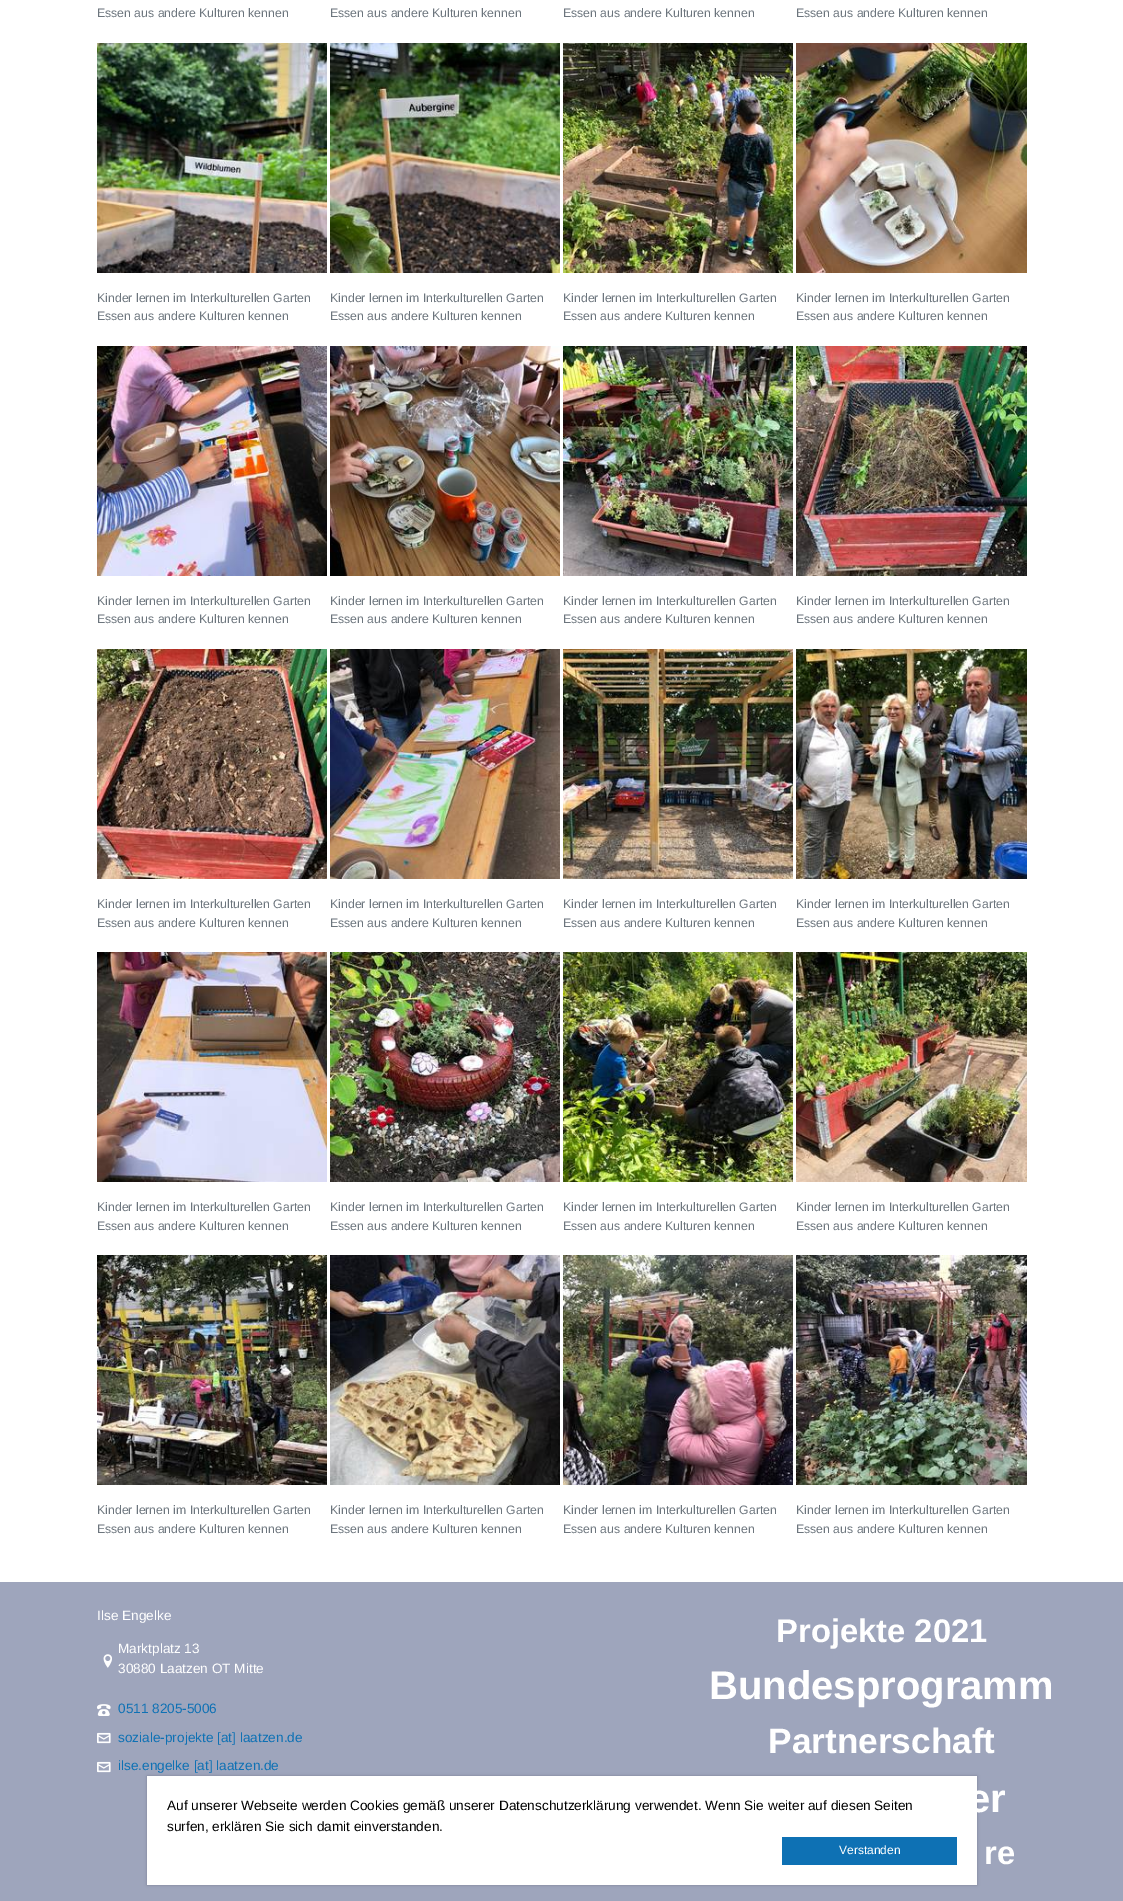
%!PS
<< /PageSize [1123 1901] /PageUsesTransparency true >> setpagedevice
/rgb { 3 { 255 div 3 1 roll } repeat setrgbcolor } def
/font { [ exch dup neg 0 0 3 -1 roll 0 0 ] selectfont } def
/alpha { dup .setfillconstantalpha .setstrokeconstantalpha } def
/roundrect { 5 dict begin { /r /h /w /y /x } { exch def } forall
  x r add y moveto x w add y 2 copy h add r arct x w add y h add x 1 index r arct
  x y h add x y r arct x y 2 copy exch w add exch r arct closepath end } def
/shadow { 12 dict begin { /a /b /q /h /w /y /x } { exch def } forall gsave /was 0 def
  9 -2 -9 { dup b mul 4 div /e exch def 1 sub .425 mul 2.718 exch exp 1 add a .99 .min exch div /now exch def
    1 1 now sub 1 was sub div sub alpha /was now def
    w h .min e 2 mul add 0 gt { x e sub y e sub w e 2 mul add h e 2 mul add
      q e add b .6 mul add w h .min 2 div e add .min 0 .max roundrect fill } if } for grestore end } def
/picture { 5 dict begin { /h /w /y /x /name } { exch def } forall
  gsave x y translate w h scale
  w h 8 [w 0 0 h 0 0] name (r) file false 3 colorimage grestore end } def
0 .pushpdf14devicefilter
0 1901 translate 1 -1 scale
4 setmiterlimit
255 255 255 rgb
0 0 1123 1901 rectfill
(img/1.rgb) 97 43 230 230 picture
(img/2.rgb) 330 43 230 230 picture
(img/3.rgb) 563 43 230 230 picture
(img/4.rgb) 796 43 231 230 picture
(img/5.rgb) 97 346 230 230 picture
(img/6.rgb) 330 346 230 230 picture
(img/7.rgb) 563 346 230 230 picture
(img/8.rgb) 796 346 231 230 picture
(img/9.rgb) 97 649 230 230 picture
(img/10.rgb) 330 649 230 230 picture
(img/11.rgb) 563 649 230 230 picture
(img/12.rgb) 796 649 231 230 picture
(img/13.rgb) 97 952 230 230 picture
(img/14.rgb) 330 952 230 230 picture
(img/15.rgb) 563 952 230 230 picture
(img/16.rgb) 796 952 231 230 picture
(img/17.rgb) 97 1255 230 230 picture
(img/18.rgb) 330 1255 230 230 picture
(img/19.rgb) 563 1255 230 230 picture
(img/20.rgb) 796 1255 231 230 picture
158 165 188 rgb
0 1582 1123 319 rectfill
(img/21.rgb) 103 1654 9 14 picture
(img/22.rgb) 97 1704 14 12 picture
(img/23.rgb) 97 1732 14 12 picture
(img/23.rgb) 97 1761 14 12 picture
0 0 0 rgb
147 1776 830 109 0 1.5 0.2 shadow
255 255 255 rgb
147 1776 830 109 rectfill
14 113 180 rgb
782 1837 175 28 rectfill
/LiberationSans-Regular 12.25 font
108 117 125 rgb
[
  [(Essen aus andere Kulturen kennen) 97 17]
  [(Essen aus andere Kulturen kennen) 330 17]
  [(Essen aus andere Kulturen kennen) 563 17]
  [(Essen aus andere Kulturen kennen) 796 17]
  [(Kinder lernen im Interkulturellen Garten) 97 302]
  [(Essen aus andere Kulturen kennen) 97 320]
  [(Kinder lernen im Interkulturellen Garten) 330 302]
  [(Essen aus andere Kulturen kennen) 330 320]
  [(Kinder lernen im Interkulturellen Garten) 563 302]
  [(Essen aus andere Kulturen kennen) 563 320]
  [(Kinder lernen im Interkulturellen Garten) 796 302]
  [(Essen aus andere Kulturen kennen) 796 320]
  [(Kinder lernen im Interkulturellen Garten) 97 605]
  [(Essen aus andere Kulturen kennen) 97 623]
  [(Kinder lernen im Interkulturellen Garten) 330 605]
  [(Essen aus andere Kulturen kennen) 330 623]
  [(Kinder lernen im Interkulturellen Garten) 563 605]
  [(Essen aus andere Kulturen kennen) 563 623]
  [(Kinder lernen im Interkulturellen Garten) 796 605]
  [(Essen aus andere Kulturen kennen) 796 623]
  [(Kinder lernen im Interkulturellen Garten) 97 908]
  [(Essen aus andere Kulturen kennen) 97 927]
  [(Kinder lernen im Interkulturellen Garten) 330 908]
  [(Essen aus andere Kulturen kennen) 330 927]
  [(Kinder lernen im Interkulturellen Garten) 563 908]
  [(Essen aus andere Kulturen kennen) 563 927]
  [(Kinder lernen im Interkulturellen Garten) 796 908]
  [(Essen aus andere Kulturen kennen) 796 927]
  [(Kinder lernen im Interkulturellen Garten) 97 1211]
  [(Essen aus andere Kulturen kennen) 97 1230]
  [(Kinder lernen im Interkulturellen Garten) 330 1211]
  [(Essen aus andere Kulturen kennen) 330 1230]
  [(Kinder lernen im Interkulturellen Garten) 563 1211]
  [(Essen aus andere Kulturen kennen) 563 1230]
  [(Kinder lernen im Interkulturellen Garten) 796 1211]
  [(Essen aus andere Kulturen kennen) 796 1230]
  [(Kinder lernen im Interkulturellen Garten) 97 1514]
  [(Essen aus andere Kulturen kennen) 97 1533]
  [(Kinder lernen im Interkulturellen Garten) 330 1514]
  [(Essen aus andere Kulturen kennen) 330 1533]
  [(Kinder lernen im Interkulturellen Garten) 563 1514]
  [(Essen aus andere Kulturen kennen) 563 1533]
  [(Kinder lernen im Interkulturellen Garten) 796 1514]
  [(Essen aus andere Kulturen kennen) 796 1533]
] { aload pop moveto show } forall
/LiberationSans-Regular 13.6 font
255 255 255 rgb
[
  [(Ilse Engelke) 97 1620]
  [(Marktplatz 13) 118 1653]
  [(30880 Laatzen OT Mitte) 118 1673]
] { aload pop moveto show } forall
14 113 180 rgb
[
  [(0511 8205-5006) 118 1713]
  [(soziale-projekte [at] laatzen.de) 118 1742]
  [(ilse.engelke [at] laatzen.de) 118 1770]
] { aload pop moveto show } forall
/LiberationSans-Bold 32.75 font
255 255 255 rgb
776 1642 moveto (Projekte 2021) show
/LiberationSans-Bold 40 font
709 1699 moveto (Bundesprogramm) show
/LiberationSans-Bold 35.25 font
768 1753 moveto (Partnerschaft) show
/LiberationSans-Bold 40 font
968 1812 moveto (er) show
/LiberationSans-Bold 32.75 font
984 1864 moveto (re) show
/LiberationSans-Regular 13.6 font
0 0 0 rgb
167 1810 moveto (Auf unserer Webseite werden Cookies gemäß unserer Datenschutzerklärung verwendet. Wenn Sie weiter auf diesen Seiten) show
167 1831 moveto (surfen, erklären Sie sich damit einverstanden.) show
/LiberationSans-Regular 12 font
255 255 255 rgb
839 1854 moveto (Verstanden) show
.poppdf14devicefilter showpage
